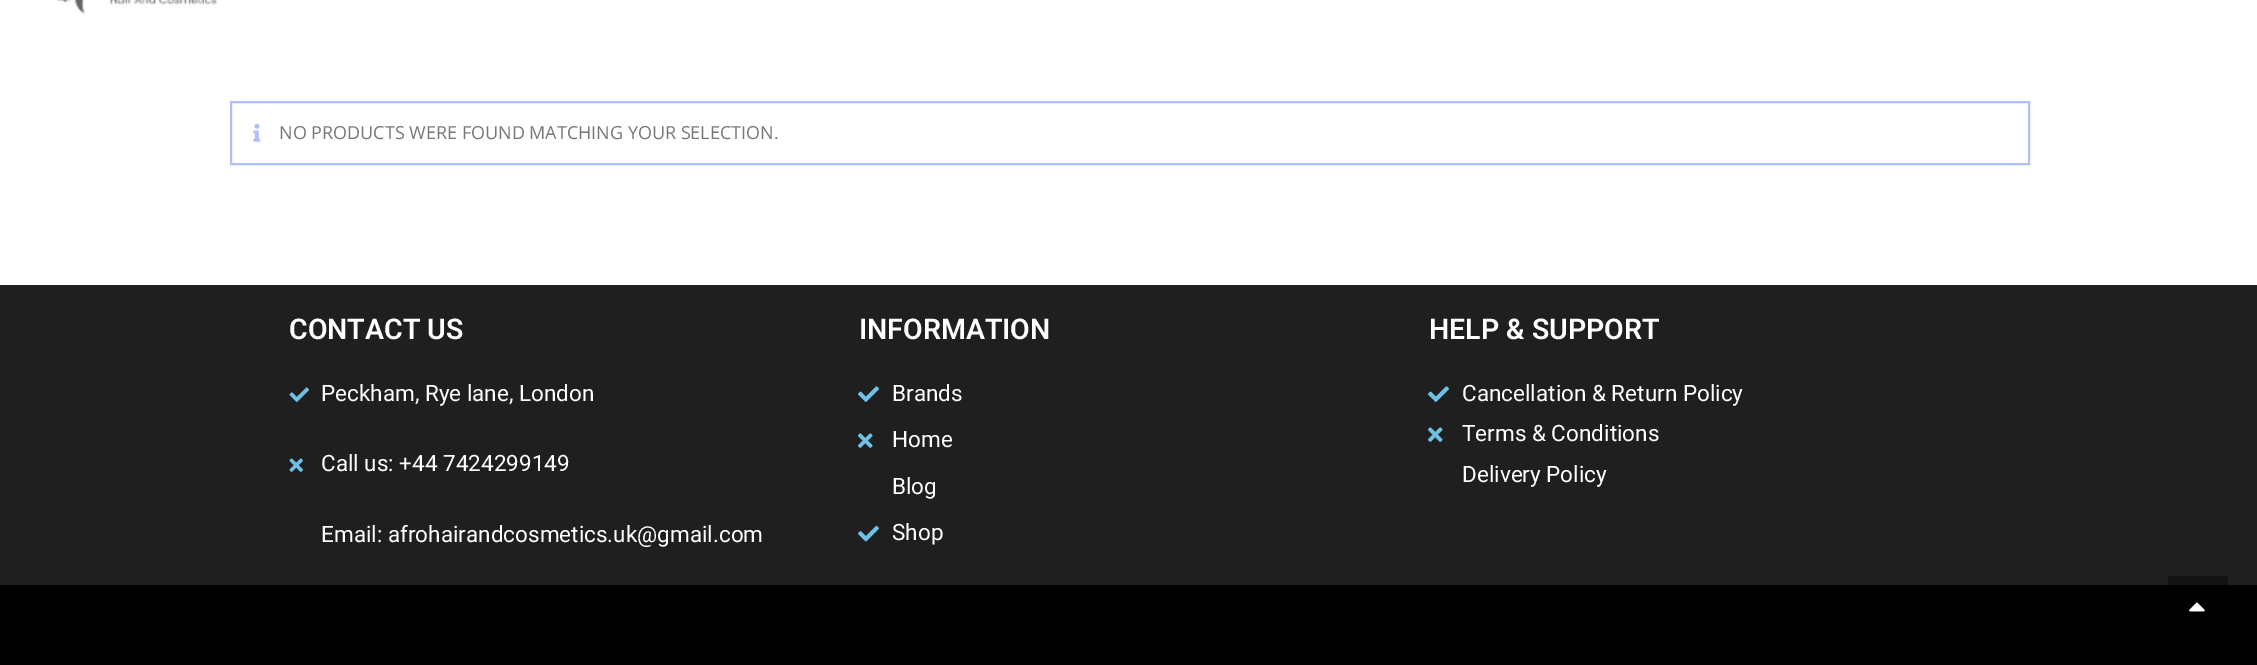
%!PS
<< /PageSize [2257 665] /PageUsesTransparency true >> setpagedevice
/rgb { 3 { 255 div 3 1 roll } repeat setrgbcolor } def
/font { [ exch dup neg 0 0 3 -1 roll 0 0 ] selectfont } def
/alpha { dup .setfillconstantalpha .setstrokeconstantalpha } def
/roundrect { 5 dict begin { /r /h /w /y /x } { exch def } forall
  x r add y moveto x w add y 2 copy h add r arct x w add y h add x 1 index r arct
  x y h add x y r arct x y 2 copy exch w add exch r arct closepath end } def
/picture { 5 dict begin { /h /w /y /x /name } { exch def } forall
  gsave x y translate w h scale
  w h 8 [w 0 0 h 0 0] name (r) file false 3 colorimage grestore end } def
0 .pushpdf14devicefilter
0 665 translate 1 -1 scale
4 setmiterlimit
255 255 255 rgb
0 0 2257 665 rectfill
(img/1.rgb) 57 0 161 15 picture
177 190 253 rgb
2 setlinewidth
231 102 1798 62 rectstroke
(img/2.rgb) 253 123 8 19 picture
31 31 31 rgb
0 285 2257 300 rectfill
(img/3.rgb) 289 387 20 15 picture
(img/4.rgb) 289 458 14 14 picture
(img/5.rgb) 858 386 21 16 picture
(img/6.rgb) 858 433 15 15 picture
(img/7.rgb) 858 525 21 17 picture
(img/5.rgb) 1428 386 21 16 picture
(img/6.rgb) 1428 427 15 15 picture
0 0 0 rgb
0 585 2257 80 rectfill
0.4 alpha
2168 576 60 60 3 roundrect fill
1 alpha
(img/8.rgb) 2189 602 16 10 picture
/OpenSans-Regular 18 font
119 119 119 rgb
279 139 moveto (NO PRODUCTS WERE FOUND MATCHING YOUR SELECTION.) show
/Roboto-SemiBold 28.5 font
255 255 255 rgb
289 339 moveto (CONTACT US) show
/Roboto-Regular 22.5 font
[
  [(Peckham, Rye lane, London) 321 401]
  [(Call us: +44 7424299149) 321 471]
  [(Email: afrohairandcosmetics.uk@gmail.com) 321 542]
] { aload pop moveto show } forall
/Roboto-SemiBold 28.5 font
859 339 moveto (INFORMATION) show
/Roboto-Regular 22.5 font
[
  [(Brands) 892 401]
  [(Home) 892 447]
  [(Blog) 892 494]
  [(Shop) 892 540]
] { aload pop moveto show } forall
/Roboto-SemiBold 28.5 font
1429 339 moveto (HELP & SUPPORT) show
/Roboto-Regular 22.5 font
[
  [(Cancellation & Return Policy) 1462 401]
  [(Terms & Conditions) 1462 441]
  [(Delivery Policy) 1462 482]
] { aload pop moveto show } forall
.poppdf14devicefilter showpage
